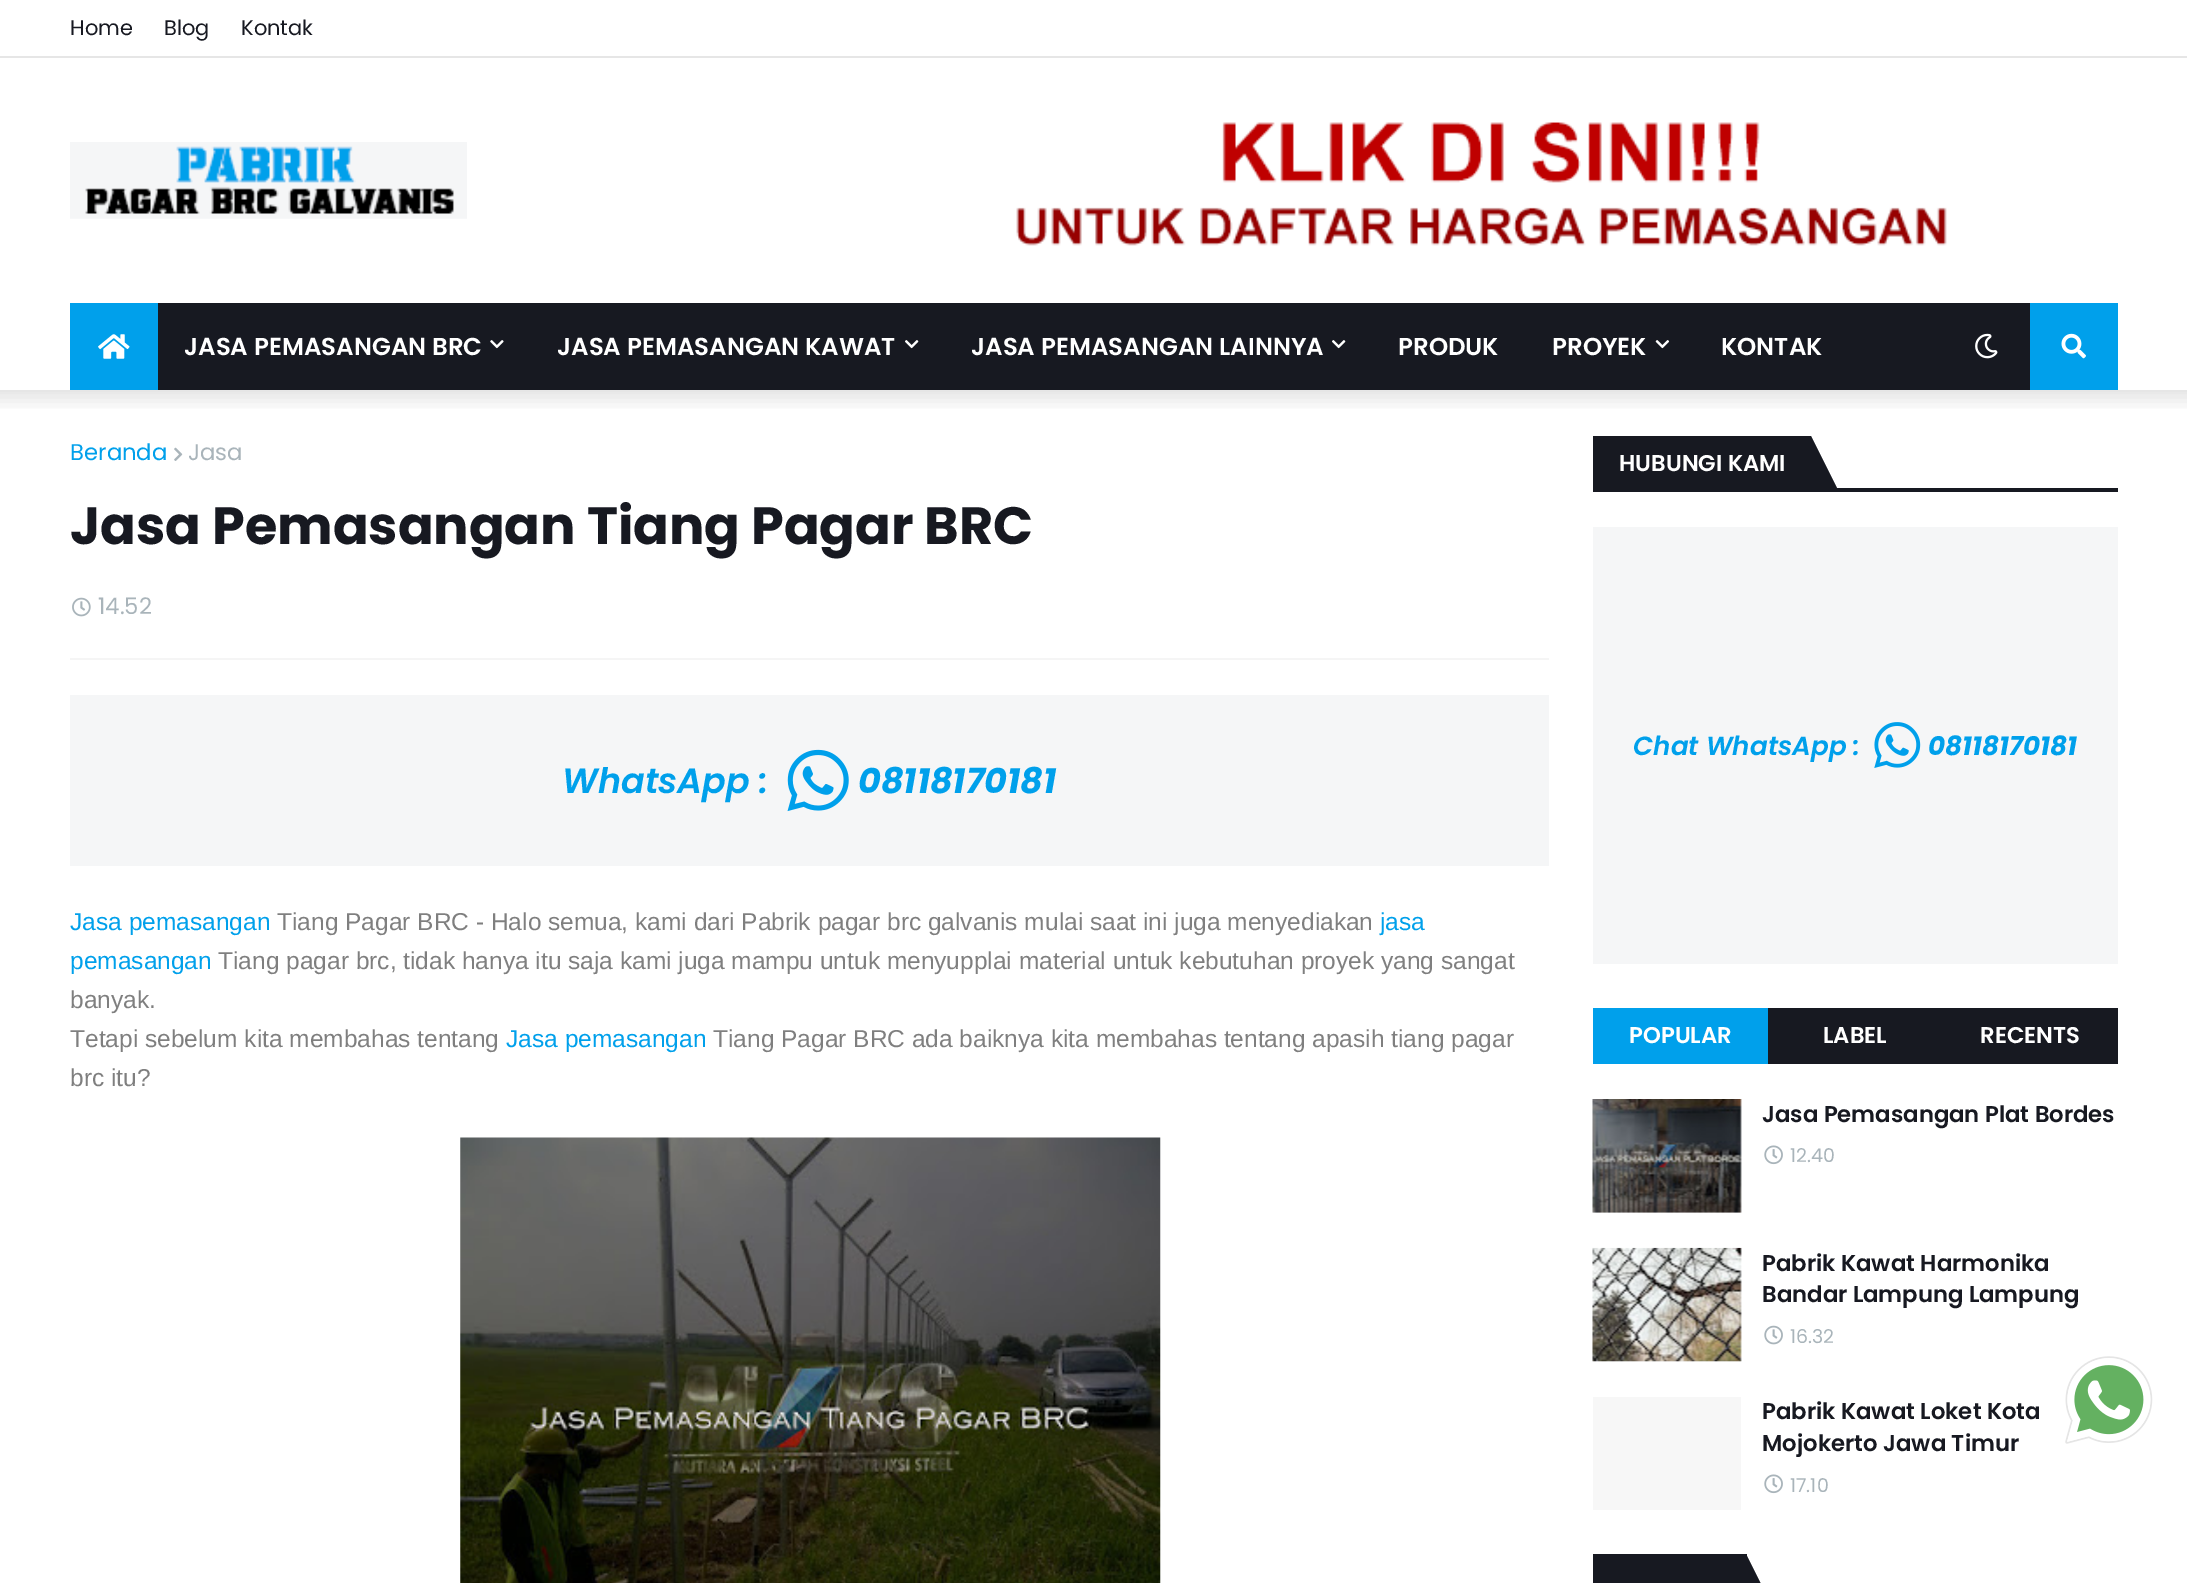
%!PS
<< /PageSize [2187 1583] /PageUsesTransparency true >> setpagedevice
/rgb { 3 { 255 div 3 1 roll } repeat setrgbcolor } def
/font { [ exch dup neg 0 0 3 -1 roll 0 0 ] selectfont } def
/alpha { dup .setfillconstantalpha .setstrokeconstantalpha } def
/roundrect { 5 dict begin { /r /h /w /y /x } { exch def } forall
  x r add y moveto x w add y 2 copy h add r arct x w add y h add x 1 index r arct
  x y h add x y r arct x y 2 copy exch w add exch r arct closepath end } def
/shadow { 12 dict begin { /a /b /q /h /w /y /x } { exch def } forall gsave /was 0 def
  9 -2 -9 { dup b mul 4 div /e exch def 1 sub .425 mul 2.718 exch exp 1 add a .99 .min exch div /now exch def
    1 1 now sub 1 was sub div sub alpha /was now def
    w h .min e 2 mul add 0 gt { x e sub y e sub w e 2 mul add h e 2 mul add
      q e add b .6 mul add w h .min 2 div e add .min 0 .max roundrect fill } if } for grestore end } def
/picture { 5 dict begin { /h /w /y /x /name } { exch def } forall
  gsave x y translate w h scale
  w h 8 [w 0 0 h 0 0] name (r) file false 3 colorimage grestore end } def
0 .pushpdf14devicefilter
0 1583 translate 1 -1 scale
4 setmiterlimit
255 255 255 rgb
0 0 2187 1583 rectfill
gsave
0 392 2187 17 rectclip
0 0 0 rgb
-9 -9 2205 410 0 9 0.1 shadow
grestore
230 230 230 rgb
0 56 2187 2 rectfill
(img/1.rgb) 70 142 397 77 picture
(img/2.rgb) 1016 122 931 124 picture
[
  [0 390 2187 2 230 230 230]
  [158 303 1872 87 23 25 33]
  [70 303 88 87 0 160 235]
] { aload pop rgb rectfill } forall
(img/3.rgb) 98 334 32 25 picture
(img/4.rgb) 490 340 14 9 picture
(img/5.rgb) 905 340 14 9 picture
(img/5.rgb) 1332 340 14 9 picture
(img/6.rgb) 1655 340 15 9 picture
(img/7.rgb) 1975 333 23 26 picture
2030 303 88 87 rectfill
(img/8.rgb) 2061 333 25 26 picture
245 245 245 rgb
70 658 1479 2 rectfill
(img/9.rgb) 174 447 9 14 picture
(img/10.rgb) 72 597 19 20 picture
245 246 247 rgb
70 695 1479 171 rectfill
(img/11.rgb) 787 749 62 63 picture
(img/12.rgb) 460 1137 701 446 picture
23 25 33 rgb
1837 488 281 4 rectfill
1593 436 218 56 rectfill
1811 492 moveto 1811 436 lineto 1839 492 lineto closepath fill
245 246 247 rgb
1593 527 525 437 rectfill
(img/13.rgb) 1874 722 47 46 picture
[
  [1768 1008 350 56 23 25 33]
  [1593 1008 175 56 0 160 235]
  [1593 1099 148 114 247 247 247]
] { aload pop rgb rectfill } forall
(img/14.rgb) 1592 1099 150 114 picture
(img/15.rgb) 1764 1145 19 20 picture
1593 1248 148 114 rectfill
(img/16.rgb) 1592 1247 150 115 picture
(img/17.rgb) 1764 1325 19 20 picture
1593 1397 148 113 rectfill
(img/15.rgb) 1764 1474 19 20 picture
23 25 33 rgb
1593 1554 154 29 rectfill
1746 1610 moveto 1746 1554 lineto 1774 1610 lineto closepath fill
(img/18.rgb) 2065 1356 88 88 picture
/Poppins-Regular 21 font
[
  [(Home) 70 35]
  [(Blog) 164 35]
  [(Kontak) 241 35]
] { aload pop moveto show } forall
/Poppins-SemiBold 24.5 font
255 255 255 rgb
[
  [(JASA PEMASANGAN BRC) 184 355]
  [(JASA PEMASANGAN KAWAT) 557 355]
  [(JASA PEMASANGAN LAINNYA) 971 355]
  [(PRODUK) 1398 355]
  [(PROYEK) 1552 355]
  [(KONTAK) 1721 355]
] { aload pop moveto show } forall
/Poppins-Regular 22.75 font
0 160 235 rgb
70 460 moveto (Beranda) show
169 180 186 rgb
188 460 moveto (Jasa) show
/Poppins-Bold 52.5 font
23 25 33 rgb
70 544 moveto (Jasa Pemasangan Tiang Pagar BRC) show
/Poppins-Regular 22.75 font
169 180 186 rgb
98 614 moveto (14.52) show
/Poppins-SemiBoldItalic 35 font
0 160 235 rgb
562 793 moveto (WhatsApp :) show
/Poppins-BoldItalic 35 font
858 793 moveto (08118170181) show
/LiberationSans-Regular 24.5 font
70 930 moveto (Jasa pemasangan) show
127 127 127 rgb
277 930 moveto (Tiang Pagar BRC - Halo semua, kami dari Pabrik pagar brc galvanis mulai saat ini juga menyediakan) show
0 160 235 rgb
1380 930 moveto (jasa) show
70 969 moveto (pemasangan) show
127 127 127 rgb
[
  [(Tiang pagar brc, tidak hanya itu saja kami juga mampu untuk menyupplai material untuk kebutuhan proyek yang sangat) 218 969]
  [(banyak.) 70 1008]
  [(Tetapi sebelum kita membahas tentang) 70 1047]
] { aload pop moveto show } forall
0 160 235 rgb
506 1047 moveto (Jasa pemasangan) show
127 127 127 rgb
713 1047 moveto (Tiang Pagar BRC ada baiknya kita membahas tentang apasih tiang pagar) show
70 1086 moveto (brc itu?) show
/Poppins-SemiBold 22.75 font
255 255 255 rgb
1619 471 moveto (HUBUNGI KAMI) show
/Poppins-SemiBoldItalic 26.25 font
0 160 235 rgb
1633 755 moveto (Chat WhatsApp :) show
/Poppins-BoldItalic 26.25 font
1928 755 moveto (08118170181) show
/Poppins-SemiBold 22.75 font
255 255 255 rgb
[
  [(POPULAR) 1629 1043]
  [(LABEL) 1823 1043]
  [(RECENTS) 1980 1043]
] { aload pop moveto show } forall
23 25 33 rgb
1762 1122 moveto (Jasa Pemasangan Plat Bordes) show
/Poppins-Regular 19 font
169 180 186 rgb
1790 1162 moveto (12.40) show
/Poppins-SemiBold 22.75 font
23 25 33 rgb
1762 1271 moveto (Pabrik Kawat Harmonika) show
1762 1302 moveto (Bandar Lampung Lampung) show
/Poppins-Regular 19 font
169 180 186 rgb
1790 1343 moveto (16.32) show
/Poppins-SemiBold 22.75 font
23 25 33 rgb
1762 1419 moveto (Pabrik Kawat Loket Kota) show
1762 1451 moveto (Mojokerto Jawa Timur) show
/Poppins-Regular 19 font
169 180 186 rgb
1790 1492 moveto (17.10) show
.poppdf14devicefilter showpage
